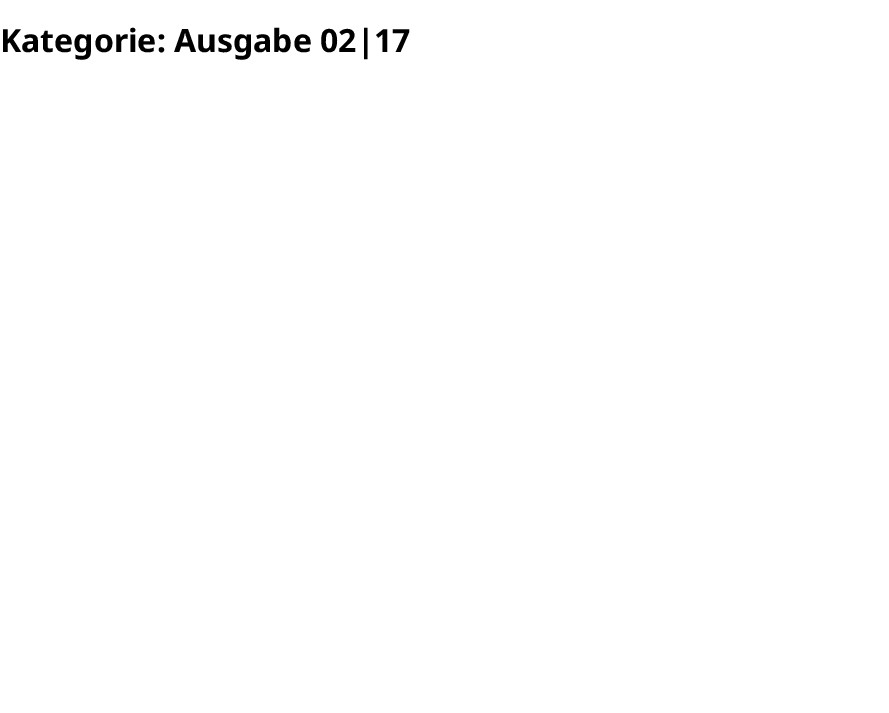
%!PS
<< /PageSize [889 713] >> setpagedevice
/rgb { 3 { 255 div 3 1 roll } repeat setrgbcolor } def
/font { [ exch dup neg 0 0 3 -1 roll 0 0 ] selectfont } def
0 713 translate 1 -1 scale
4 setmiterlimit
255 255 255 rgb
0 0 889 713 rectfill
/NotoSans-Bold 32 font
0 0 0 rgb
0 52 moveto (Kategorie: Ausgabe 02|17) show
showpage
